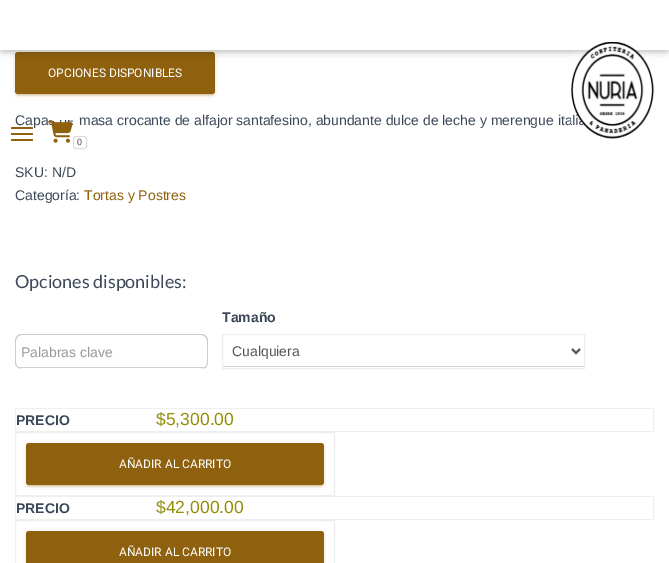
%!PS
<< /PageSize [669 563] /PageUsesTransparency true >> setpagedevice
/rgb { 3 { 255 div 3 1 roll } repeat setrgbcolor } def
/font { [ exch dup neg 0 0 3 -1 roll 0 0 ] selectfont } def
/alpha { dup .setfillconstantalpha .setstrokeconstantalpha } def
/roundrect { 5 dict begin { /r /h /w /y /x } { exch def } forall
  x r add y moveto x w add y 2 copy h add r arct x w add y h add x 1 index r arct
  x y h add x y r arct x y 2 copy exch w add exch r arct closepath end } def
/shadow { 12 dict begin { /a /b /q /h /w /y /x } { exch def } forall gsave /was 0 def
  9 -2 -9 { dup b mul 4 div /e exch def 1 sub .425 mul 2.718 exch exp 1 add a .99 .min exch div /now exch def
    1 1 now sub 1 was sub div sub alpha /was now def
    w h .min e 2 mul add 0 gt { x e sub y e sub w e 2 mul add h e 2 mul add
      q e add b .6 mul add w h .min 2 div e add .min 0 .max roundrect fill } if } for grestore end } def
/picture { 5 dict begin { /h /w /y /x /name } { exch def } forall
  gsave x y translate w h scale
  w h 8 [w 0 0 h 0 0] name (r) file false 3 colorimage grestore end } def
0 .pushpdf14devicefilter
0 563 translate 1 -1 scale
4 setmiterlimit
255 255 255 rgb
0 0 669 563 rectfill
143 96 13 rgb
15 53 200 42 3 2.5 0.12 shadow
17 57 196 38 1 0.5 0.2 shadow
15 54 200 42 3 1 0.14 shadow
15 52 200 42 3 roundrect fill
gsave
15 334 193 35 7 roundrect clip newpath
210 210 210 rgb
16 367 191 1 rectfill
grestore
204 204 204 rgb
22 334 moveto 201 334 lineto 205 334 208 337 208 341 curveto 208 362 lineto 208 366 205 369 201 369 curveto 22 369 lineto 18 369 15 366 15 362 curveto 15 341 lineto 15 337 18 334 22 334 curveto closepath 22 335 moveto 201 335 lineto 204 335 207 338 207 341 curveto 207 362 lineto 207 366 204 369 201 369 curveto 22 369 lineto 19 369 16 366 16 362 curveto 16 341 lineto 16 338 19 335 22 335 curveto closepath eofill
210 210 210 rgb
223 366 361 1 rectfill
238 238 238 rgb
222.5 334.5 362 34 rectstroke
85 85 85 rgb
2 setlinewidth
572 349 moveto 576 353 lineto 580 349 lineto stroke
[
  [15 408 639 1 238 238 238]
  [653 408 1 24 238 238 238]
  [15 431 639 1 238 238 238]
  [15 408 1 24 238 238 238]
] { aload pop rgb rectfill } forall
1 setlinewidth
15.5 432.5 319 63 rectstroke
143 96 13 rgb
26 444 298 42 3 2.5 0.12 shadow
28 448 294 38 1 0.5 0.2 shadow
26 445 298 42 3 1 0.14 shadow
26 443 298 42 3 roundrect fill
[
  [15 496 639 1 238 238 238]
  [653 496 1 24 238 238 238]
  [15 519 639 1 238 238 238]
  [15 496 1 24 238 238 238]
] { aload pop rgb rectfill } forall
15.5 520.5 319 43 rectstroke
143 96 13 rgb
26 532 298 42 3 2.5 0.12 shadow
26 533 298 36 3 1 0.14 shadow
26 531 298 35 3 roundrect fill
0 0 0 rgb
2 6 665 46 0 2.5 0.1 shadow
0 1 669 50 0 5 0.12 shadow
6 7 657 38 0 5 0.42 shadow
255 255 255 rgb
0 0 669 50 rectfill
143 96 13 rgb
11 133 22 2 1 roundrect fill
11 139 22 2 1 roundrect fill
221 221 221 rgb
73.5 136.5 13 12 2.5 roundrect stroke
/Roboto-Regular 12 font
255 255 255 rgb
48 77 moveto (OPCIONES DISPONIBLES) show
/LiberationSans-Regular 14 font
60 72 88 rgb
[
  [(Capa) 15 125]
  [(masa crocante de alfajor santafesino, abundante dulce de leche y merengue itali) 79 125]
  [(SKU: N/D) 15 177]
  [(Categoría:) 15 200]
] { aload pop moveto show } forall
143 96 13 rgb
84 200 moveto (Tortas y Postres) show
/Lato-Regular 18 font
60 72 88 rgb
15 288 moveto (Opciones disponibles:) show
/LiberationSans-Regular 14 font
153 153 153 rgb
21 357 moveto (Palabras clave) show
/LiberationSans-Bold 14 font
60 72 88 rgb
222 322 moveto (Tamaño) show
/LiberationSans-Regular 14 font
85 85 85 rgb
232 356 moveto (Cualquiera) show
/LiberationSans-Bold 14 font
60 72 88 rgb
16 425 moveto (PRECIO) show
/LiberationSans-Regular 17.5 font
149 142 9 rgb
156 425 moveto ($5,300.00) show
/Roboto-Regular 12 font
255 255 255 rgb
119 468 moveto (AÑADIR AL CARRITO) show
/LiberationSans-Bold 14 font
60 72 88 rgb
16 513 moveto (PRECIO) show
/LiberationSans-Regular 17.5 font
149 142 9 rgb
156 513 moveto ($42,000.00) show
/Roboto-Regular 12 font
255 255 255 rgb
119 556 moveto (AÑADIR AL CARRITO) show
(img/1.rgb) 571 42 84 97 picture
143 96 13 rgb
11 127 22 2 1 roundrect fill
(img/2.rgb) 48 120 25 23 picture
/LiberationSans-Regular 9 font
85 85 85 rgb
77 145 moveto (0) show
.poppdf14devicefilter showpage
